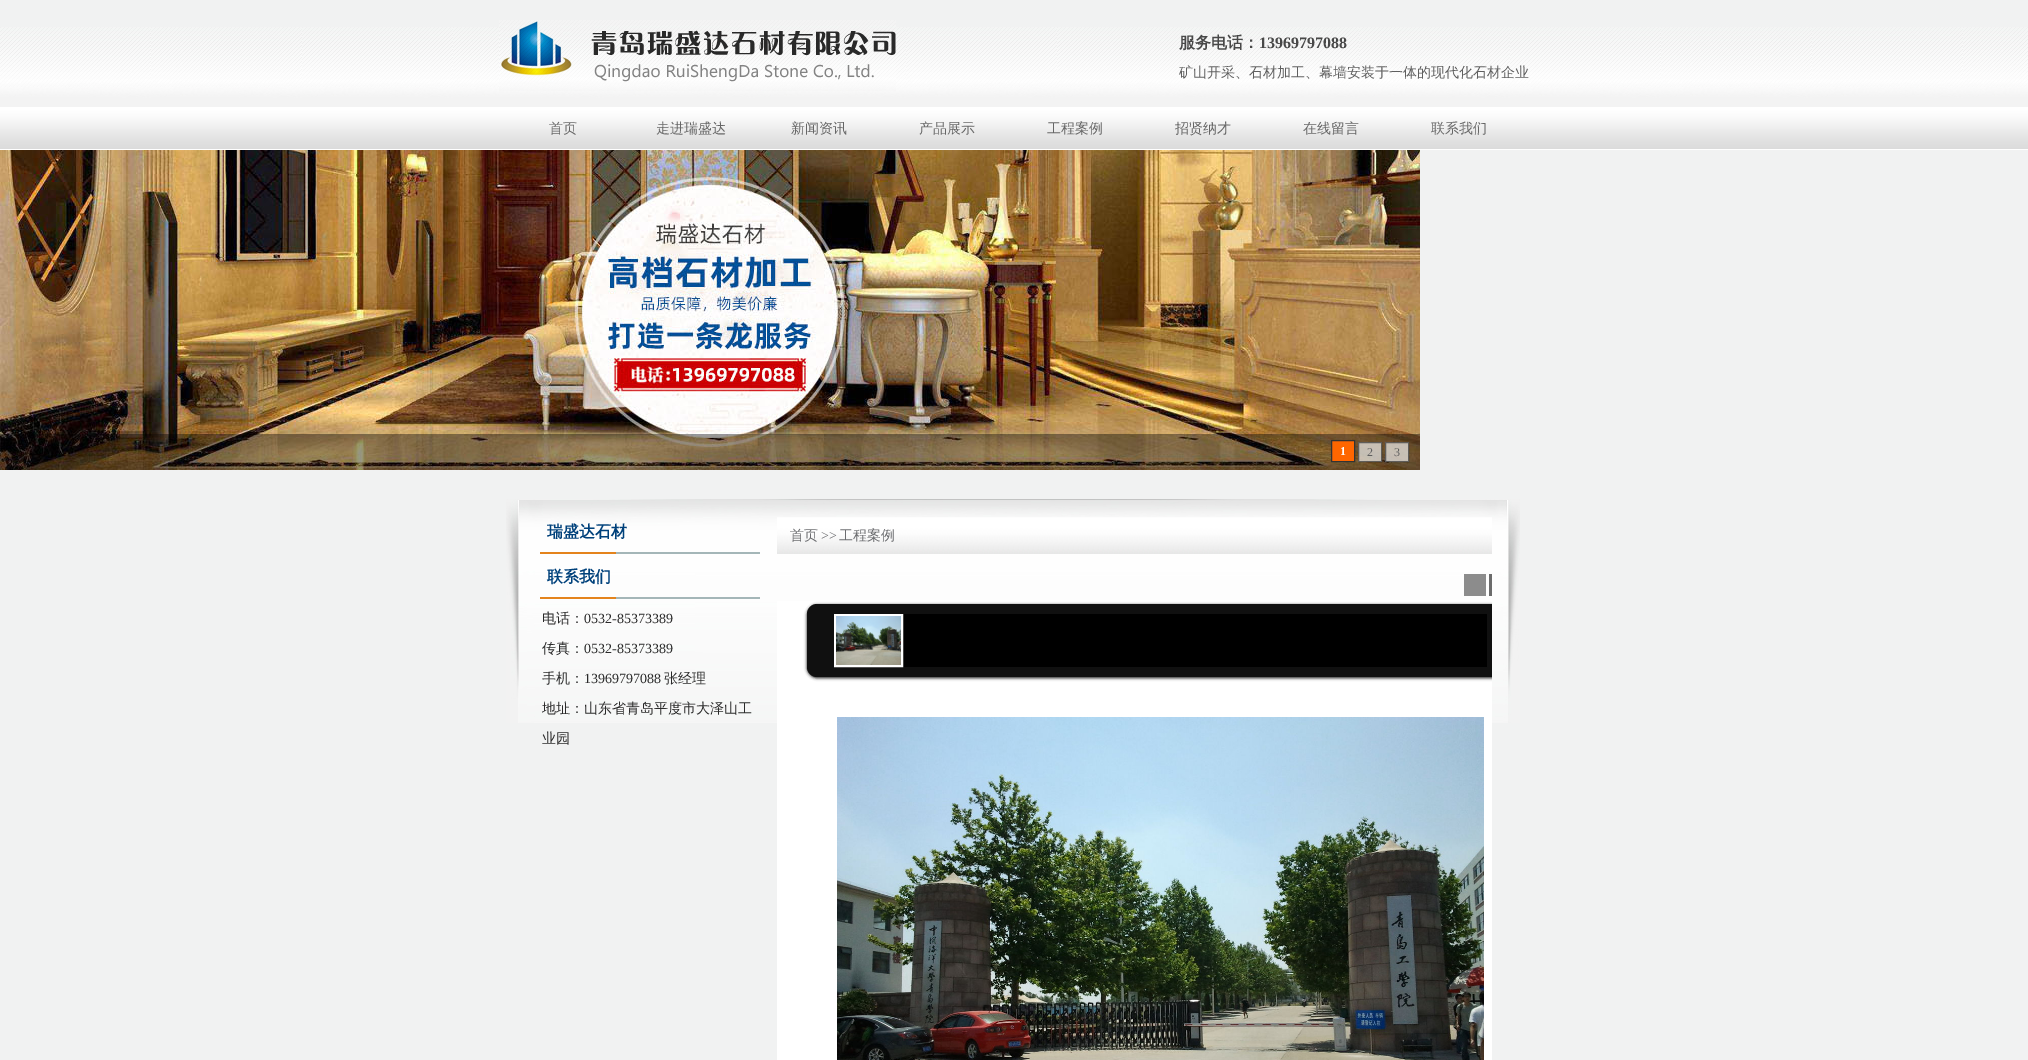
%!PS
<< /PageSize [2028 1060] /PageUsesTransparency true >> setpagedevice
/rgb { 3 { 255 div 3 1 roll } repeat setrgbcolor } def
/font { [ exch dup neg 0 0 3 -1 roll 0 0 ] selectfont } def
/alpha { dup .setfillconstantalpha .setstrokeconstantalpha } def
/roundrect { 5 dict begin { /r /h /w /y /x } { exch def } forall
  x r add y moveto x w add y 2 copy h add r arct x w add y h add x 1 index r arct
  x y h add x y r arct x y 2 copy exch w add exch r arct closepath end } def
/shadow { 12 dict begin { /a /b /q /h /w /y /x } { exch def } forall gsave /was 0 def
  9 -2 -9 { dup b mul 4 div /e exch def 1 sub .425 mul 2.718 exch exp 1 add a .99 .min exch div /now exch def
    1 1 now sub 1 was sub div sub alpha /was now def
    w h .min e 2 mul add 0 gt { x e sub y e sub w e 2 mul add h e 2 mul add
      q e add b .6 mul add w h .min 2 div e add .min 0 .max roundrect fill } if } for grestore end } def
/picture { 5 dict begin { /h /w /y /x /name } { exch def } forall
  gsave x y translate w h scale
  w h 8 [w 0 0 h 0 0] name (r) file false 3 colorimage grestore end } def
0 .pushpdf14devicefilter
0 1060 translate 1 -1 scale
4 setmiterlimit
241 242 242 rgb
0 0 2028 1060 rectfill
(img/1.rgb) 0 27 2028 123 picture
(img/2.rgb) 499 20 397 71 picture
(img/3.rgb) 0 150 1420 40 picture
(img/4.rgb) 0 190 1420 40 picture
(img/5.rgb) 0 230 1420 40 picture
(img/6.rgb) 0 270 1420 40 picture
(img/7.rgb) 0 310 1420 40 picture
(img/8.rgb) 0 350 1420 40 picture
(img/9.rgb) 0 390 1420 40 picture
(img/10.rgb) 0 430 1420 40 picture
255 102 0 rgb
1331.5 440.5 moveto 1354.5 440.5 lineto 1354.5 461.5 lineto 1331.5 461.5 lineto closepath gsave fill grestore
51 51 51 rgb
stroke
0.7 alpha
238 238 238 rgb
1358 442 24 20 rectfill
51 51 51 rgb
1358.5 442.5 23 19 rectstroke
238 238 238 rgb
1385 442 24 20 rectfill
51 51 51 rgb
1385.5 442.5 23 19 rectstroke
1 alpha
(img/11.rgb) 506 499 1014 224 picture
(img/12.rgb) 540 552 220 2 picture
(img/12.rgb) 540 597 220 2 picture
(img/13.rgb) 777 517 715 37 picture
[
  [777 601 715 459 255 255 255]
  [1464 574 22 22 140 140 140]
  [1489 574 3 22 107 107 107]
] { aload pop rgb rectfill } forall
gsave
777 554 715 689 rectclip
0 0 0 rgb
807 605 707 73 10 1.5 0.9 shadow
grestore
16 16 16 rgb
817 604 moveto 1492 604 lineto 1492 677 lineto 817 677 lineto 811.5 677 807 672.5 807 667 curveto 807 614 lineto 807 608.5 811.5 604 817 604 curveto closepath fill
0 0 0 rgb
903 614 584 53 rectfill
255 255 255 rgb
2 setlinewidth
835 615 67 51 rectstroke
(img/14.rgb) 836 616 65 49 picture
(img/15.rgb) 837 717 647 343 picture
/WenQuanYiZenHei-Bold 16 font
72 72 72 rgb
1179 48 moveto (服务电话：) show
/LiberationSerif-Bold 16 font
1259 48 moveto (13969797088) show
/WenQuanYiZenHei-Medium 14 font
95 95 95 rgb
1179 77 moveto (矿山开采、石材加工、幕墙安装于一体的现代化石材企业) show
102 102 102 rgb
[
  [(首页) 549 133]
  [(走进瑞盛达) 656 133]
  [(新闻资讯) 791 133]
  [(产品展示) 919 133]
  [(工程案例) 1047 133]
  [(招贤纳才) 1175 133]
  [(在线留言) 1303 133]
  [(联系我们) 1431 133]
] { aload pop moveto show } forall
/LiberationSerif-Bold 12 font
255 255 255 rgb
1340 455 moveto (1) show
/LiberationSerif-Regular 12 font
95 95 95 rgb
1367 456 moveto (2) show
1394 456 moveto (3) show
/WenQuanYiZenHei-Bold 16 font
0 65 123 rgb
547 537 moveto (瑞盛达石材) show
547 582 moveto (联系我们) show
/WenQuanYiZenHei-Medium 14 font
42 42 42 rgb
542 623 moveto (电话：) show
/LiberationSerif-Regular 14 font
584 623 moveto (0532-85373389) show
/WenQuanYiZenHei-Medium 14 font
542 653 moveto (传真：) show
/LiberationSerif-Regular 14 font
584 653 moveto (0532-85373389) show
/WenQuanYiZenHei-Medium 14 font
542 683 moveto (手机：) show
/LiberationSerif-Regular 14 font
584 683 moveto (13969797088) show
/WenQuanYiZenHei-Medium 14 font
[
  [(张经理) 664 683]
  [(地址：山东省青岛平度市大泽山工) 542 713]
  [(业园) 542 743]
] { aload pop moveto show } forall
107 108 111 rgb
790 540 moveto (首页) show
/LiberationSerif-Regular 14 font
821 540 moveto (>>) show
/WenQuanYiZenHei-Medium 14 font
839 540 moveto (工程案例) show
.poppdf14devicefilter showpage
